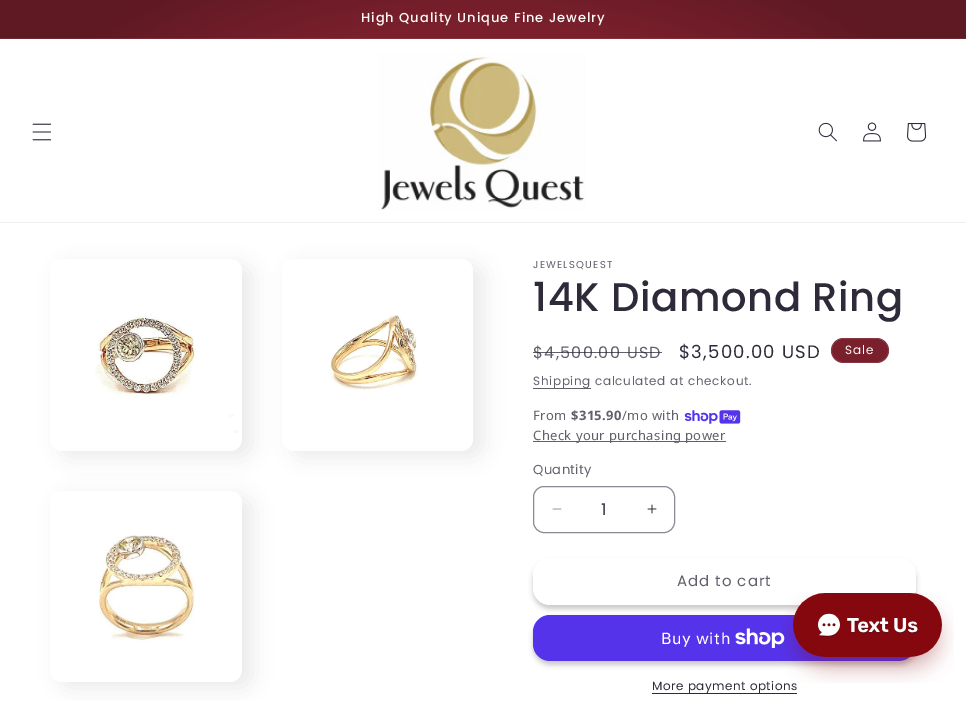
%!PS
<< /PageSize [966 701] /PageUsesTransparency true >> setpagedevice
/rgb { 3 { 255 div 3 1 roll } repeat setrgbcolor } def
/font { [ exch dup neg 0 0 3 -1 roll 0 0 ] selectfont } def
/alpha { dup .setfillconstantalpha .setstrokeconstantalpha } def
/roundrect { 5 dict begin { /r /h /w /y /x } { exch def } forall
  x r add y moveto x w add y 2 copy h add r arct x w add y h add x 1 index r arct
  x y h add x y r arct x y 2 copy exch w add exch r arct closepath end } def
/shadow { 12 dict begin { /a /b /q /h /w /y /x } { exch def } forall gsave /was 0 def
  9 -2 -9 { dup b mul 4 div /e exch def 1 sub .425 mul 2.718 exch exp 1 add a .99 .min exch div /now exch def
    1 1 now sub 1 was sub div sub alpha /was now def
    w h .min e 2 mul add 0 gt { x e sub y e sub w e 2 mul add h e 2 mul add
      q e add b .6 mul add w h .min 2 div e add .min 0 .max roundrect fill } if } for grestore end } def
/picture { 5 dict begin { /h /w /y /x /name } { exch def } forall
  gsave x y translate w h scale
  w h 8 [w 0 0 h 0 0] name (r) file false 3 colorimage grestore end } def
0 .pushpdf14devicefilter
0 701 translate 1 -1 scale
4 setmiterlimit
255 255 255 rgb
0 0 966 701 rectfill
gsave 0 0 moveto 966 0 lineto 966 38 lineto 0 38 lineto closepath clip newpath 483 351 translate 683 496 scale
<< /ShadingType 3 /ColorSpace /DeviceRGB /Coords [0 0 0 0 0 1] /Extend [true true] /Function << /FunctionType 3 /Domain [0 1] /Functions [<< /FunctionType 2 /Domain [0 1] /C0 [0.475 0.125 0.173] /C1 [0.475 0.125 0.173] /N 1 >> << /FunctionType 2 /Domain [0 1] /C0 [0.475 0.125 0.173] /C1 [0.369 0.098 0.137] /N 1 >> << /FunctionType 2 /Domain [0 1] /C0 [0.369 0.098 0.137] /C1 [0.369 0.098 0.137] /N 1 >>] /Bounds [0.66 0.87] /Encode [0 1 0 1 0 1] >> >> shfill grestore
gsave 0 38 moveto 966 38 lineto 966 39 lineto 0 39 lineto closepath clip newpath 483 351 translate 683 496 scale
<< /ShadingType 3 /ColorSpace /DeviceRGB /Coords [0 0 0 0 0 1] /Extend [true true] /Function << /FunctionType 3 /Domain [0 1] /Functions [<< /FunctionType 2 /Domain [0 1] /C0 [0.518 0.196 0.235] /C1 [0.518 0.196 0.235] /N 1 >> << /FunctionType 2 /Domain [0 1] /C0 [0.518 0.196 0.235] /C1 [0.42 0.169 0.204] /N 1 >> << /FunctionType 2 /Domain [0 1] /C0 [0.42 0.169 0.204] /C1 [0.42 0.169 0.204] /N 1 >>] /Bounds [0.66 0.87] /Encode [0 1 0 1 0 1] >> >> shfill grestore
238 238 239 rgb
0 222 966 1 rectfill
(img/1.rgb) 32 123 20 18 picture
(img/2.rgb) 378 53 208 157 picture
(img/3.rgb) 818 122 19 20 picture
(img/4.rgb) 863 122 18 20 picture
(img/5.rgb) 907 123 20 19 picture
57 46 42 rgb
60 265 192 192 12 10 0.1 shadow
255 255 255 rgb
50 259 192 192 12 roundrect fill
(img/6.rgb) 95 316 144 117 picture
57 46 42 rgb
292 265 191 192 12 10 0.1 shadow
255 255 255 rgb
282 259 191 192 12 roundrect fill
(img/7.rgb) 330 315 88 75 picture
57 46 42 rgb
60 497 192 191 12 10 0.1 shadow
255 255 255 rgb
50 491 192 191 12 roundrect fill
(img/8.rgb) 97 535 99 107 picture
121 32 44 rgb
831 338 58 25 12.5 roundrect fill
0.1 alpha
253 251 247 rgb
831.5 338.5 57 24 12 roundrect stroke
1 alpha
98 95 107 rgb
533 388 58 1 rectfill
(img/9.rgb) 684 410 57 14 picture
533 441 193 1 rectfill
(img/10.rgb) 552 508 10 2 picture
(img/11.rgb) 647 504 10 10 picture
140 138 146 rgb
533.5 486.5 141 46 10.5 roundrect stroke
57 46 42 rgb
533 562 383 47 17 2.5 0.25 shadow
255 255 255 rgb
533 558 383 47 17 roundrect fill
57 46 42 rgb
533 619 383 46 17 2.5 0.25 shadow
84 51 235 rgb
533 615 383 46 17 roundrect fill
(img/12.rgb) 735 628 50 20 picture
46 42 57 rgb
652 693 145 1 rectfill
/Poppins-Medium 13 font
253 251 247 rgb
361 22 moveto 1 0 (High Quality Unique Fine Jewelry) ashow
/Poppins-Regular 10 font
98 95 107 rgb
533 268 moveto 1.25 0 (JEWELSQUEST) ashow
/Poppins-Medium 40 font
46 42 57 rgb
533 311 moveto 0.6 0 (14K Diamond Ring) ashow
/Poppins-Regular 16 font
98 95 107 rgb
533 358 moveto 1.25 0 ($4,500.00 USD) ashow
0.75 alpha
46 42 57 rgb
533 352 129 1 rectfill
/Poppins-Regular 18 font
1 alpha
679 358 moveto 1.25 0 ($3,500.00 USD) ashow
/Poppins-Regular 12 font
253 251 247 rgb
845 354 moveto 1 0 (Sale) ashow
98 95 107 rgb
533 385 moveto 0.7 0 (Shipping) ashow
595 385 moveto 0.7 0 (calculated at checkout.) ashow
/NotoSans-Regular 13 font
533 420 moveto 0.4 0 (From) ashow
/NotoSans-Bold 13 font
571 420 moveto 0.4 0 ($315.90) ashow
/NotoSans-Regular 13 font
622 420 moveto 0.4 0 (/mo with) ashow
533 440 moveto 0.4 0 (Check your purchasing power) ashow
/Poppins-Regular 13 font
533 474 moveto 0.4 0 (Quantity) ashow
/Poppins-Medium 16 font
77 74 87 rgb
601 515 moveto (1) show
/Poppins-Regular 15 font
98 95 107 rgb
677 586 moveto 1 0 (Add to cart) ashow
/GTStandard-Regular 16 font
255 255 255 rgb
661 644 moveto 0.6 0 (Buy with) ashow
/Poppins-Regular 12 font
46 42 57 rgb
652 690 moveto 0.5 0 (More payment options) ashow
(img/13.rgb) 781 593 173 90 picture
.poppdf14devicefilter showpage
